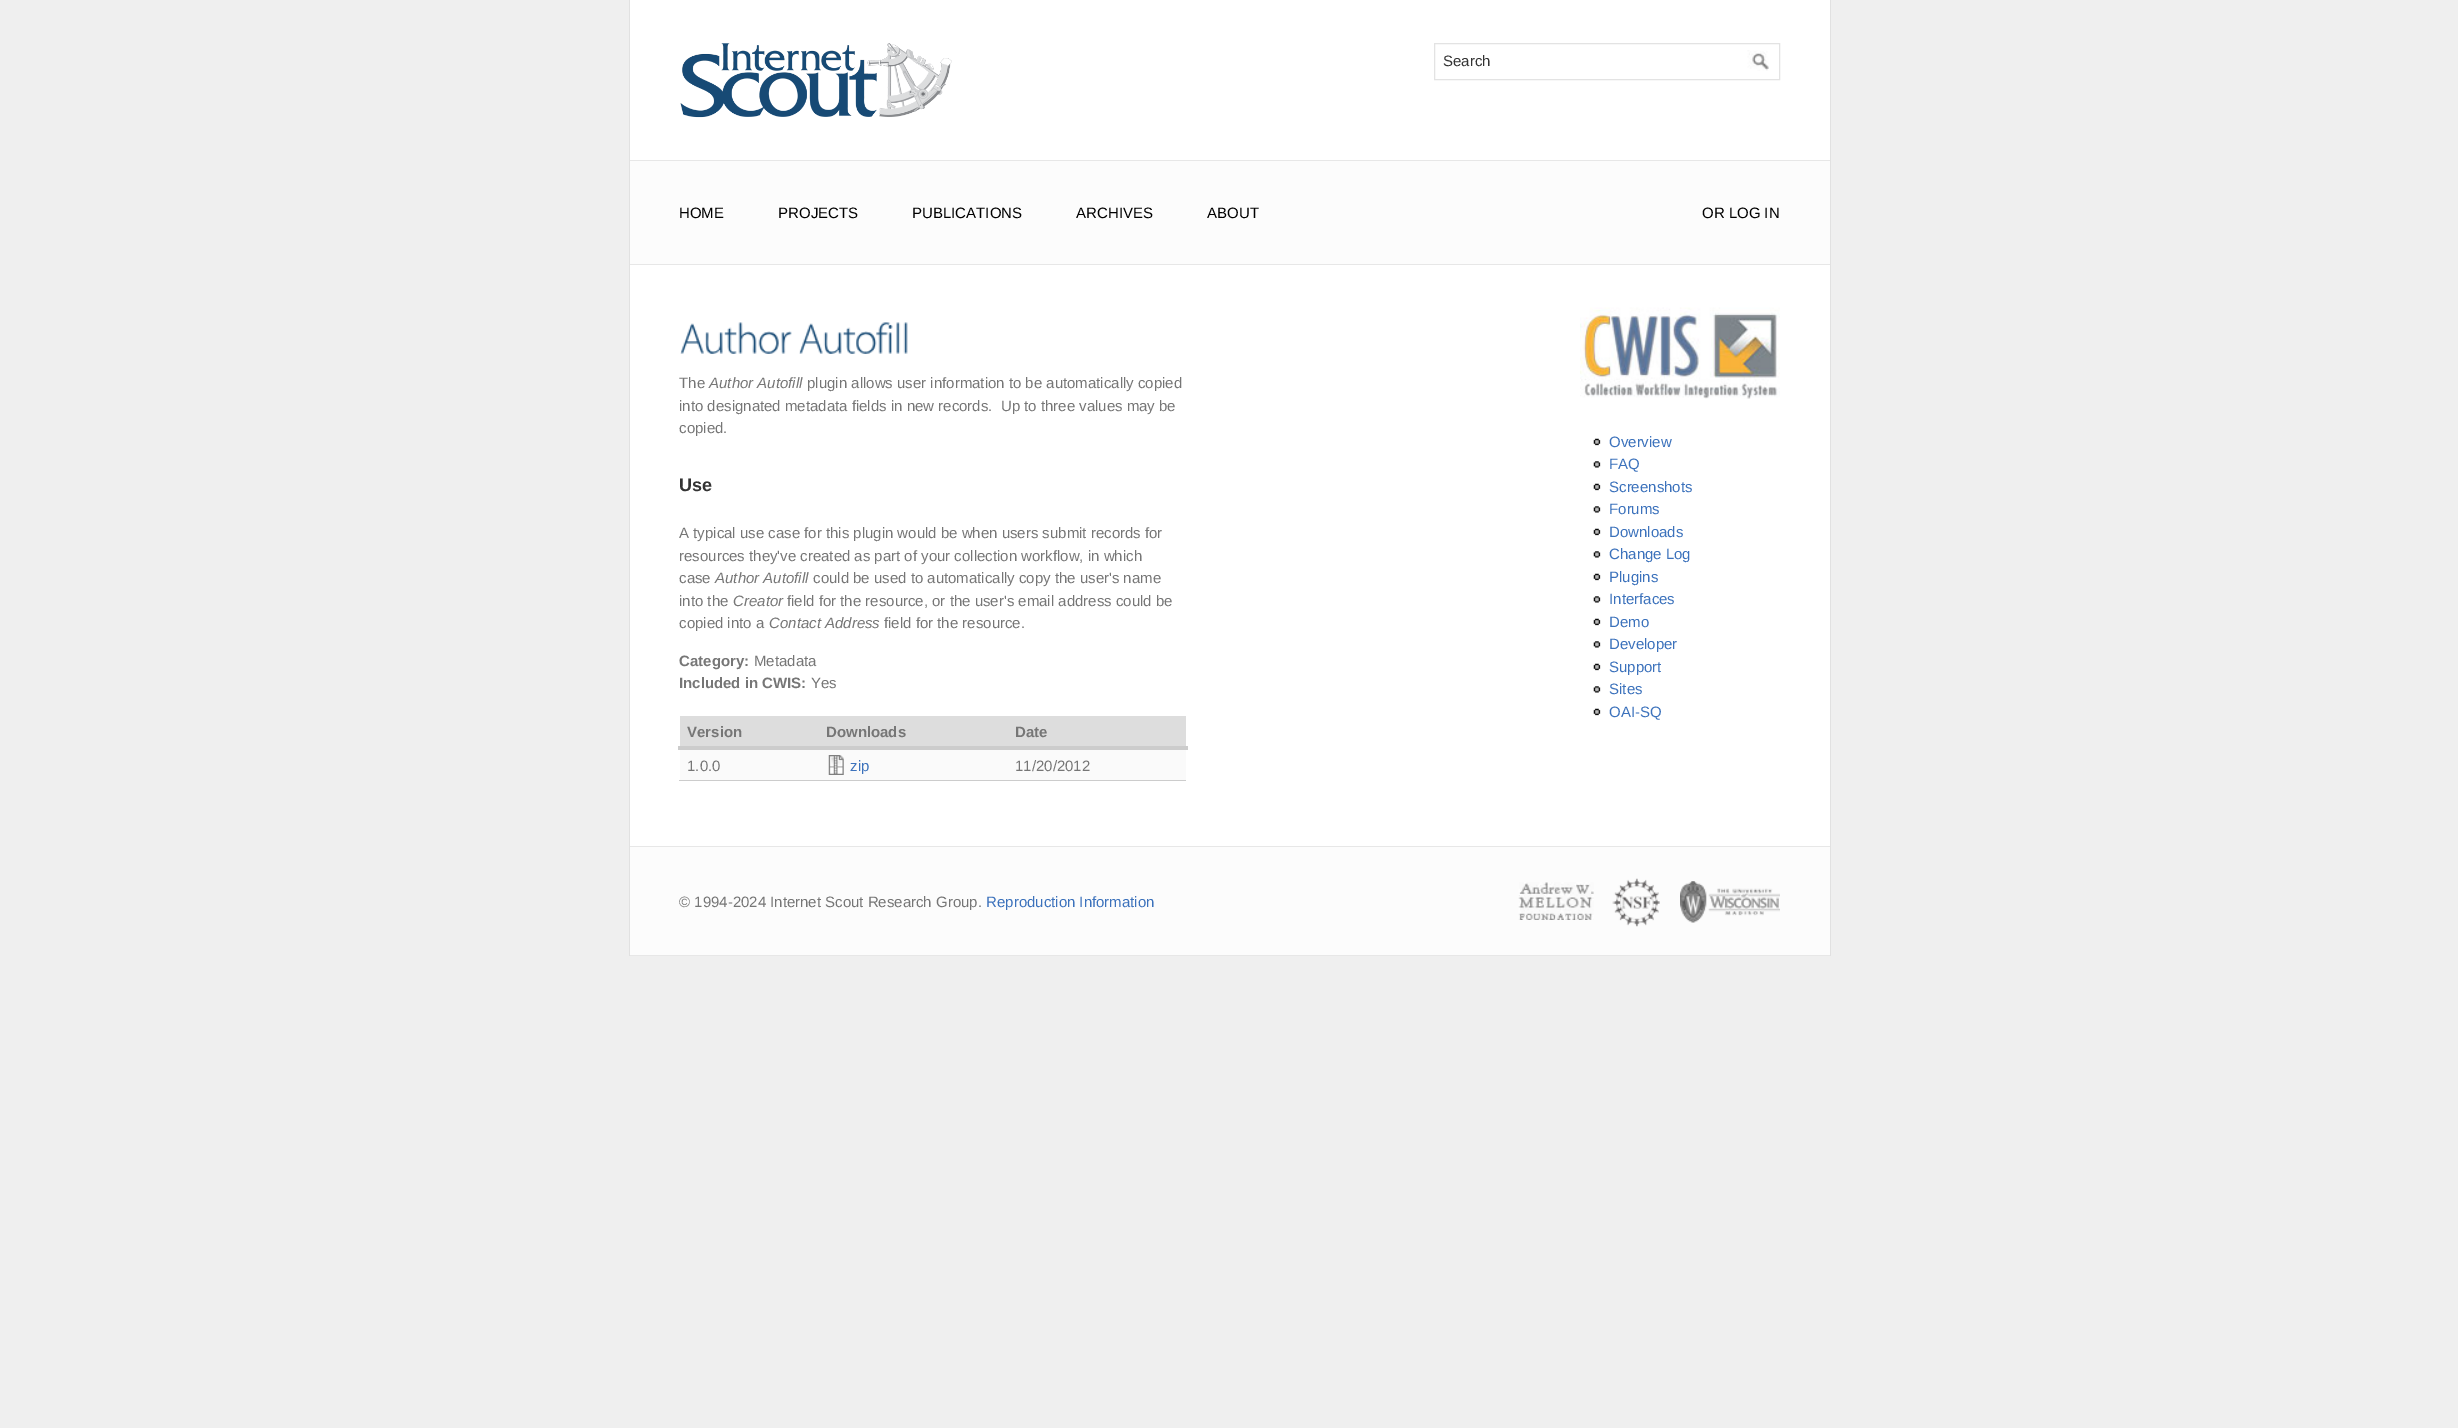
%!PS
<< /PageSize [2458 1428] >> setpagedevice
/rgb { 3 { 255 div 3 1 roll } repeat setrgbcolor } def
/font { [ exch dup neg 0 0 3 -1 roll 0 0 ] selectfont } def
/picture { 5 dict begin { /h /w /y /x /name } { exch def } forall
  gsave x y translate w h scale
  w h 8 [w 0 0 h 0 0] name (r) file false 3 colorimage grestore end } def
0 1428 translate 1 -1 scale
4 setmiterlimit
239 239 239 rgb
0 0 2458 1428 rectfill
[
  [630 0 1200 846 255 255 255]
  [1830 0 1 956 225 225 225]
  [629 0 1 956 225 225 225]
] { aload pop rgb rectfill } forall
(img/1.rgb) 680 43 272 75 picture
227 227 227 rgb
1434.5 43.5 345 36 rectstroke
(img/2.rgb) 1747 50 22 21 picture
[
  [630 161 1200 103 252 252 252]
  [630 160 1200 1 231 231 231]
  [630 264 1200 1 231 231 231]
] { aload pop rgb rectfill } forall
(img/3.rgb) 680 322 112 32 picture
(img/4.rgb) 799 322 109 32 picture
[
  [680 716 506 30 221 221 221]
  [678 746 510 4 204 204 204]
  [680 750 506 30 250 250 250]
  [679 780 507 1 204 204 204]
] { aload pop rgb rectfill } forall
(img/5.rgb) 828 755 16 20 picture
(img/6.rgb) 1580 307 200 92 picture
(img/7.rgb) 1593 438 8 8 picture
(img/8.rgb) 1593 461 8 7 picture
(img/7.rgb) 1593 483 8 8 picture
(img/8.rgb) 1593 506 8 7 picture
(img/7.rgb) 1593 528 8 8 picture
(img/8.rgb) 1593 551 8 7 picture
(img/7.rgb) 1593 573 8 8 picture
(img/8.rgb) 1593 596 8 7 picture
(img/7.rgb) 1593 618 8 8 picture
(img/8.rgb) 1593 641 8 7 picture
(img/7.rgb) 1593 663 8 8 picture
(img/8.rgb) 1593 686 8 7 picture
(img/7.rgb) 1593 708 8 8 picture
[
  [630 847 1200 108 252 252 252]
  [630 846 1200 1 231 231 231]
  [630 955 1200 1 231 231 231]
] { aload pop rgb rectfill } forall
(img/9.rgb) 1518 882 76 38 picture
(img/10.rgb) 1612 878 48 49 picture
(img/11.rgb) 1680 881 100 42 picture
/LiberationSans-Regular 15 font
52 52 52 rgb
1443 66 moveto (Search) show
0 0 0 rgb
[
  [(HOME) 679 218]
  [(PROJECTS) 778 218]
  [(PUBLICATIONS) 912 218]
  [(ARCHIVES) 1076 218]
  [(ABOUT) 1207 218]
  [(OR LOG IN) 1702 218]
] { aload pop moveto show } forall
118 118 118 rgb
679 388 moveto (The) show
/LiberationSans-Italic 15 font
709 388 moveto (Author Autofill) show
/LiberationSans-Regular 15 font
[
  [(plugin allows user information to be automatically copied) 807 388]
  [(into designated metadata fields in new records.  Up to three values may be) 679 411]
  [(copied.) 679 433]
] { aload pop moveto show } forall
/LiberationSans-Bold 18 font
52 52 52 rgb
679 491 moveto (Use) show
/LiberationSans-Regular 15 font
118 118 118 rgb
[
  [(A typical use case for this plugin would be when users submit records for) 679 538]
  [(resources they've created as part of your collection workflow, in which) 679 561]
  [(case) 679 583]
] { aload pop moveto show } forall
/LiberationSans-Italic 15 font
715 583 moveto (Author Autofill) show
/LiberationSans-Regular 15 font
813 583 moveto (could be used to automatically copy the user's name) show
679 606 moveto (into the) show
/LiberationSans-Italic 15 font
733 606 moveto (Creator) show
/LiberationSans-Regular 15 font
787 606 moveto (field for the resource, or the user's email address could be) show
679 628 moveto (copied into a) show
/LiberationSans-Italic 15 font
769 628 moveto (Contact Address) show
/LiberationSans-Regular 15 font
884 628 moveto (field for the resource.) show
/LiberationSans-Bold 15 font
679 666 moveto (Category:) show
/LiberationSans-Regular 15 font
754 666 moveto (Metadata) show
/LiberationSans-Bold 15 font
679 688 moveto (Included in CWIS:) show
/LiberationSans-Regular 15 font
811 688 moveto (Yes) show
/LiberationSans-Bold 15 font
[
  [(Version) 687 737]
  [(Downloads) 826 737]
  [(Date) 1015 737]
] { aload pop moveto show } forall
/LiberationSans-Regular 15 font
687 771 moveto (1.0.0) show
60 114 188 rgb
850 771 moveto (zip) show
118 118 118 rgb
1015 771 moveto (11/20/2012) show
60 114 188 rgb
[
  [(Overview) 1609 447]
  [(FAQ) 1609 469]
  [(Screenshots) 1609 492]
  [(Forums) 1609 514]
  [(Downloads) 1609 537]
  [(Change Log) 1609 559]
  [(Plugins) 1609 582]
  [(Interfaces) 1609 604]
  [(Demo) 1609 627]
  [(Developer) 1609 649]
  [(Support) 1609 672]
  [(Sites) 1609 694]
  [(OAI-SQ) 1609 717]
] { aload pop moveto show } forall
118 118 118 rgb
679 907 moveto (© 1994-2024 Internet Scout Research Group.) show
60 114 188 rgb
986 907 moveto (Reproduction Information) show
showpage
